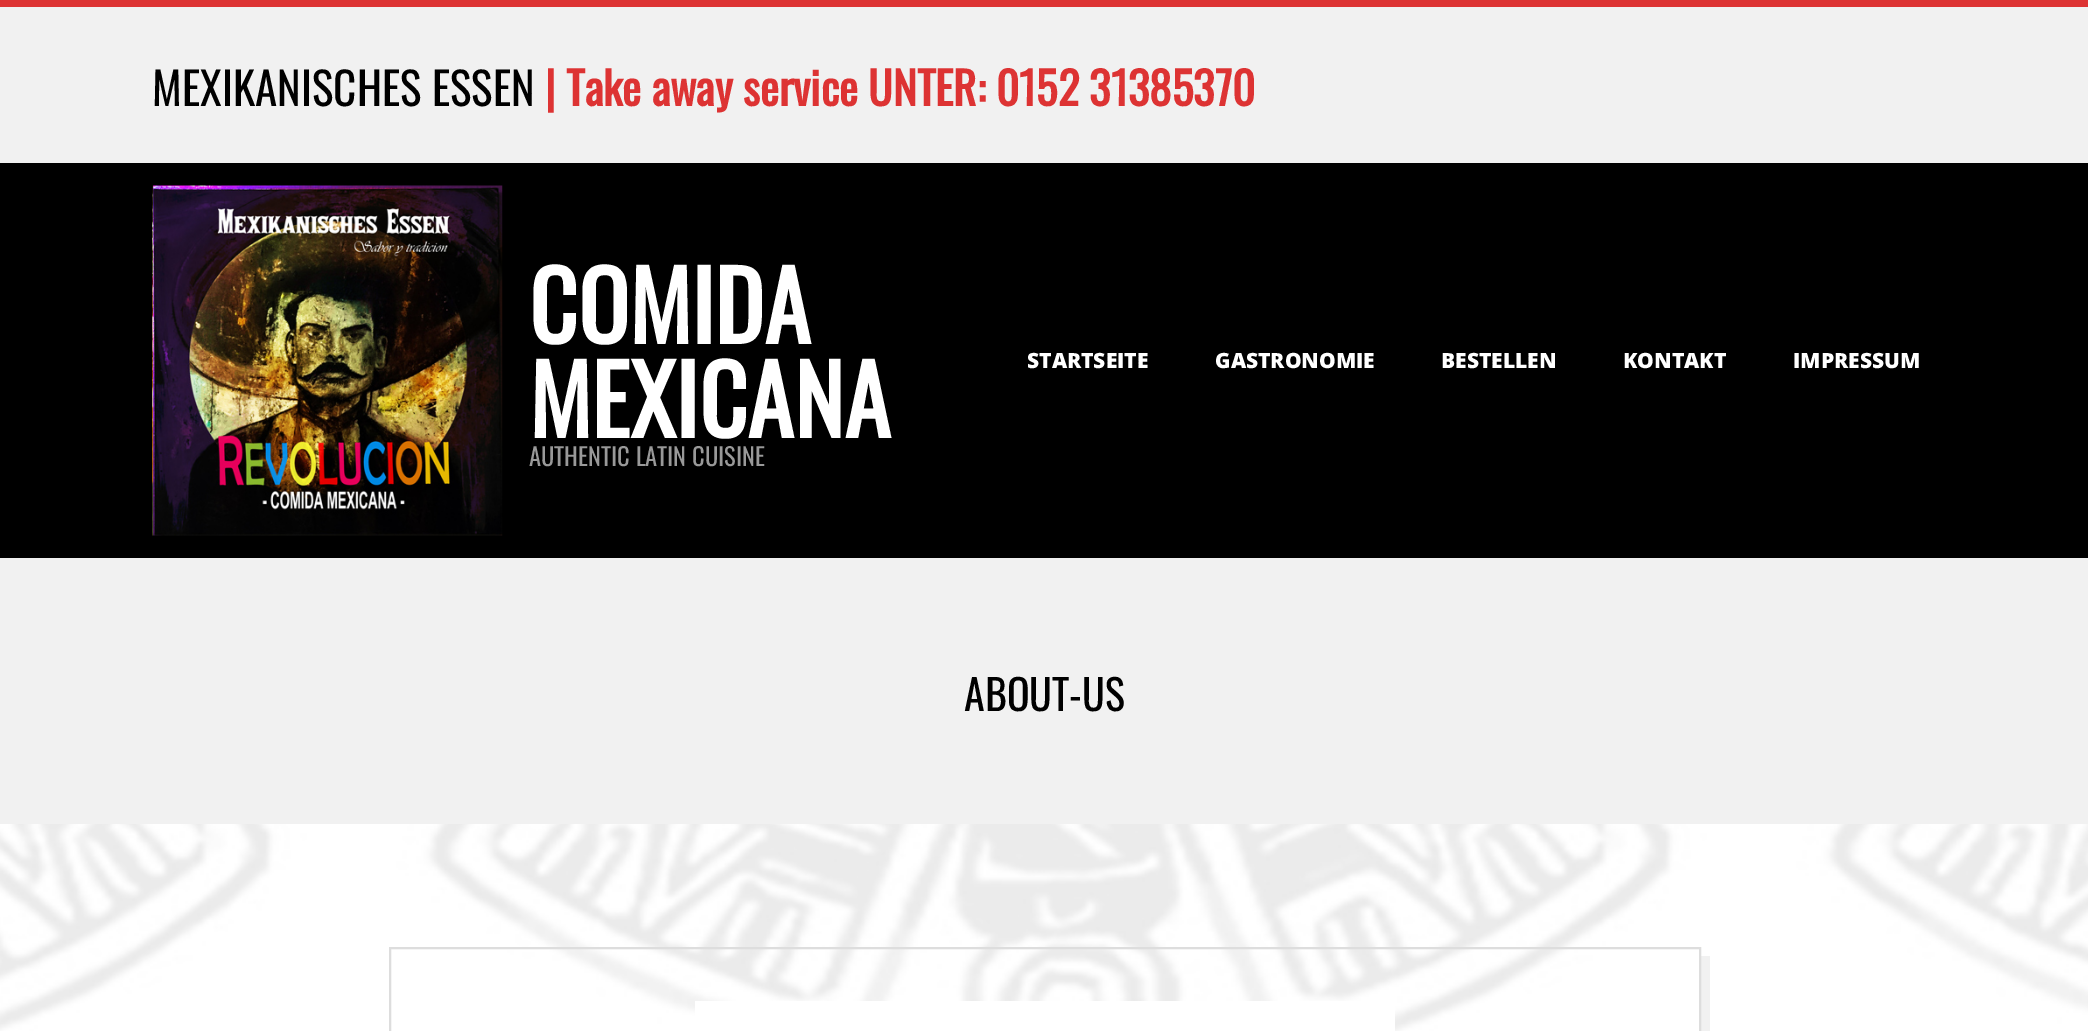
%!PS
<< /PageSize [2088 1031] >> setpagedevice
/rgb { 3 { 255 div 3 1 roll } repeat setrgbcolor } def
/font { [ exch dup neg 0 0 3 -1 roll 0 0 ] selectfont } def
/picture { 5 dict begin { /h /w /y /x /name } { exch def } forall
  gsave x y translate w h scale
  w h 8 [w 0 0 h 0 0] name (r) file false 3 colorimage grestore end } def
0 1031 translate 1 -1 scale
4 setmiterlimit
255 255 255 rgb
0 0 2088 1031 rectfill
(img/1.rgb) 0 824 2088 207 picture
[
  [0 0 2088 7 221 51 51]
  [0 7 2088 156 241 241 241]
  [0 163 2088 395 0 0 0]
] { aload pop rgb rectfill } forall
(img/2.rgb) 152 185 351 351 picture
241 241 241 rgb
0 558 2088 266 rectfill
397 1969 moveto 397 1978 lineto 1710 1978 lineto 1710 956 lineto 1701 956 lineto 1701 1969 lineto closepath fill
221 221 221 rgb
2 setlinewidth
390 948 1310 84 rectstroke
255 255 255 rgb
695 1001 700 30 rectfill
/Oswald-Regular 45 font
0 0 0 rgb
152 106 moveto (MEXIKANISCHES ESSEN) show
/Oswald-Bold 45 font
221 51 51 rgb
545 106 moveto (| Take away service UNTER: 0152 31385370) show
/Oswald-Bold 94.5 font
255 255 255 rgb
529 344 moveto (COMIDA) show
529 438 moveto (MEXICANA) show
/Oswald-Regular 24.5 font
153 153 153 rgb
529 466 moveto (AUTHENTIC LATIN CUISINE) show
/OpenSans-ExtraBold 21 font
255 255 255 rgb
[
  [(STARTSEITE) 1027 368]
  [(GASTRONOMIE) 1215 368]
  [(BESTELLEN) 1441 368]
  [(KONTAKT) 1623 368]
  [(IMPRESSUM) 1793 368]
] { aload pop moveto show } forall
/Oswald-Regular 42 font
0 0 0 rgb
964 711 moveto (ABOUT-US) show
showpage
